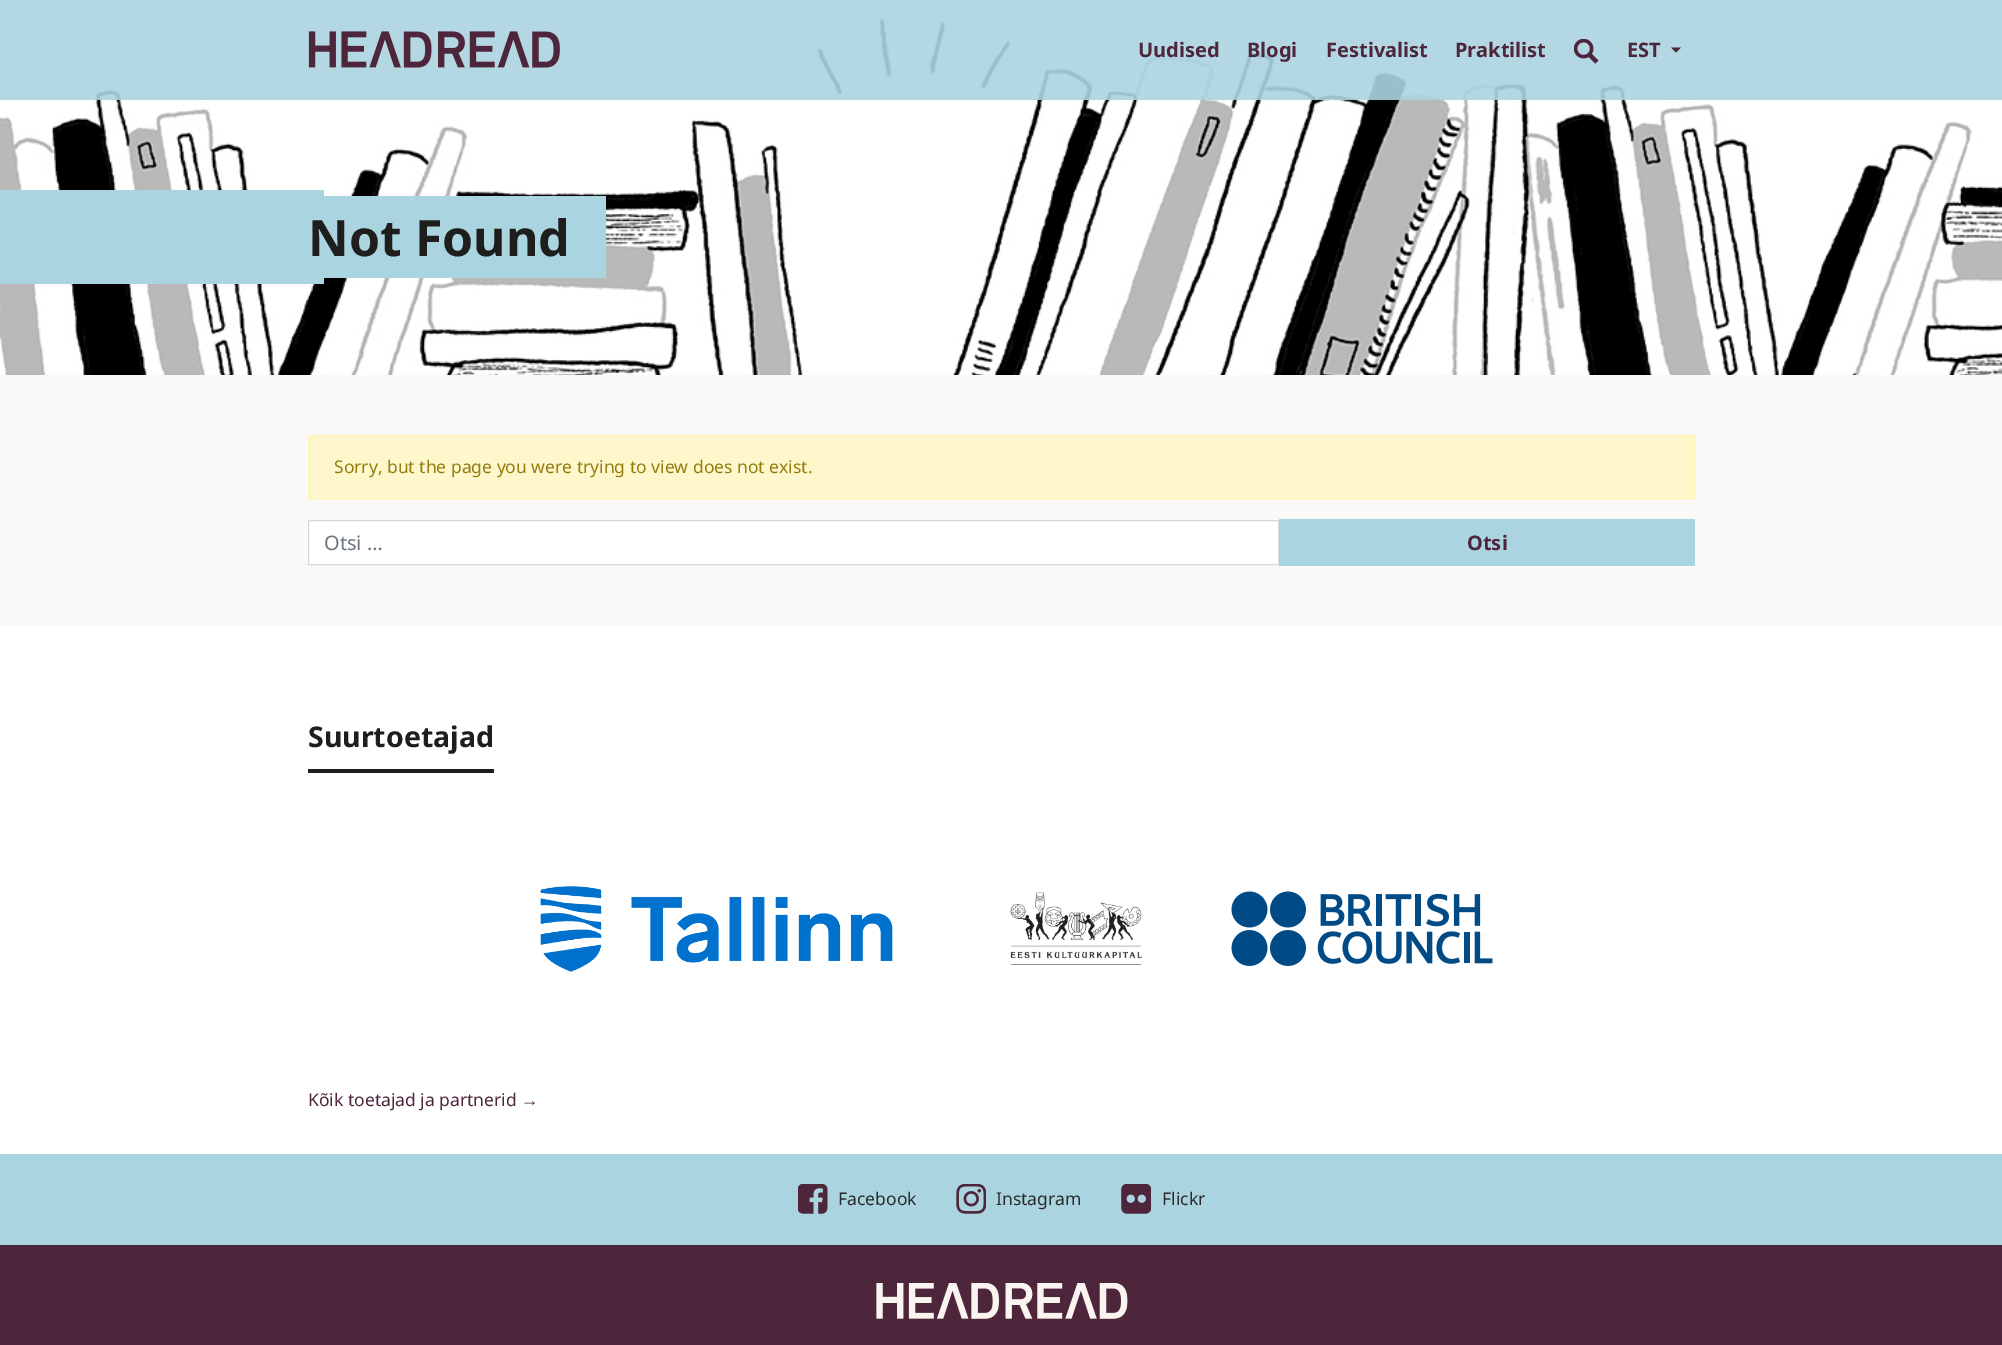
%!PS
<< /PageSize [2002 1345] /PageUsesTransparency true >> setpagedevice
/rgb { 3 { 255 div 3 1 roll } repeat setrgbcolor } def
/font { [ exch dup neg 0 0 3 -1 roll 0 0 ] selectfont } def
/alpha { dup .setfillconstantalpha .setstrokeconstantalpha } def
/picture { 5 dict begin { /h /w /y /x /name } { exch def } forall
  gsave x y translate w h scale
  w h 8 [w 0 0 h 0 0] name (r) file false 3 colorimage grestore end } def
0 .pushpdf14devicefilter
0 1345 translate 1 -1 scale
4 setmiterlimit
251 249 247 rgb
0 0 2002 1345 rectfill
(img/3.rgb) 0 0 2002 375 picture
0.9 alpha
171 212 225 rgb
0 0 2002 100 rectfill
1 alpha
(img/1.rgb) 308 31 252 37 picture
(img/2.rgb) 1574 39 25 25 picture
77 38 59 rgb
1671 47.5 moveto 1681 47.5 lineto 1676 52.5 lineto closepath fill
171 212 225 rgb
-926 284 moveto 324 284 lineto 324 190 lineto 308 190 lineto 308 284 lineto closepath fill
0 190 308 94 rectfill
324 196 moveto 590 196 lineto 590 278 lineto 324 278 lineto 606 278 lineto 606 196 lineto closepath fill
324 196 266 82 rectfill
255 247 204 rgb
308.5 435.5 moveto 1694.5 435.5 lineto 1694.5 498.5 lineto 308.5 498.5 lineto closepath gsave fill grestore
255 243 184 rgb
stroke
255 255 255 rgb
308.5 520.5 moveto 1278.5 520.5 lineto 1278.5 564.5 lineto 308.5 564.5 lineto closepath gsave fill grestore
218 216 214 rgb
stroke
[
  [1279 519 416 47 171 212 225]
  [0 626 2002 528 255 255 255]
  [308 769 186 4 30 30 28]
] { aload pop rgb rectfill } forall
(img/4.rgb) 540 886 353 86 picture
(img/5.rgb) 1010 892 132 73 picture
(img/6.rgb) 1231 891 262 75 picture
171 212 225 rgb
0 1154 2002 91 rectfill
(img/7.rgb) 798 1184 30 30 picture
(img/8.rgb) 956 1184 30 30 picture
(img/9.rgb) 1121 1184 30 30 picture
77 38 59 rgb
0 1245 2002 100 rectfill
(img/10.rgb) 876 1283 252 36 picture
/NotoSans-Bold 20 font
[
  [(Uudised) 1138 57]
  [(Blogi) 1247 57]
  [(Festivalist) 1326 57]
  [(Praktilist) 1455 57]
  [(EST) 1627 57]
] { aload pop moveto show } forall
/NotoSans-Bold 50 font
30 30 28 rgb
308 256 moveto (Not Found) show
/NotoSans-Regular 17.5 font
147 125 13 rgb
334 473 moveto (Sorry, but the page you were trying to view does not exist.) show
/NotoSans-Regular 20 font
108 117 125 rgb
324 550 moveto (Otsi …) show
/NotoSans-Bold 20 font
77 38 59 rgb
1467 550 moveto (Otsi) show
/NotoSans-Bold 28.5 font
30 30 28 rgb
308 747 moveto (Suurtoetajad) show
/NotoSans-Regular 17.5 font
77 38 59 rgb
308 1106 moveto (Kõik toetajad ja partnerid) show
/LiberationSans-Regular 17.5 font
521 1106 moveto (→) show
/NotoSans-Regular 17.5 font
41 43 44 rgb
[
  [(Facebook) 838 1205]
  [(Instagram) 996 1205]
  [(Flickr) 1162 1205]
] { aload pop moveto show } forall
.poppdf14devicefilter showpage
